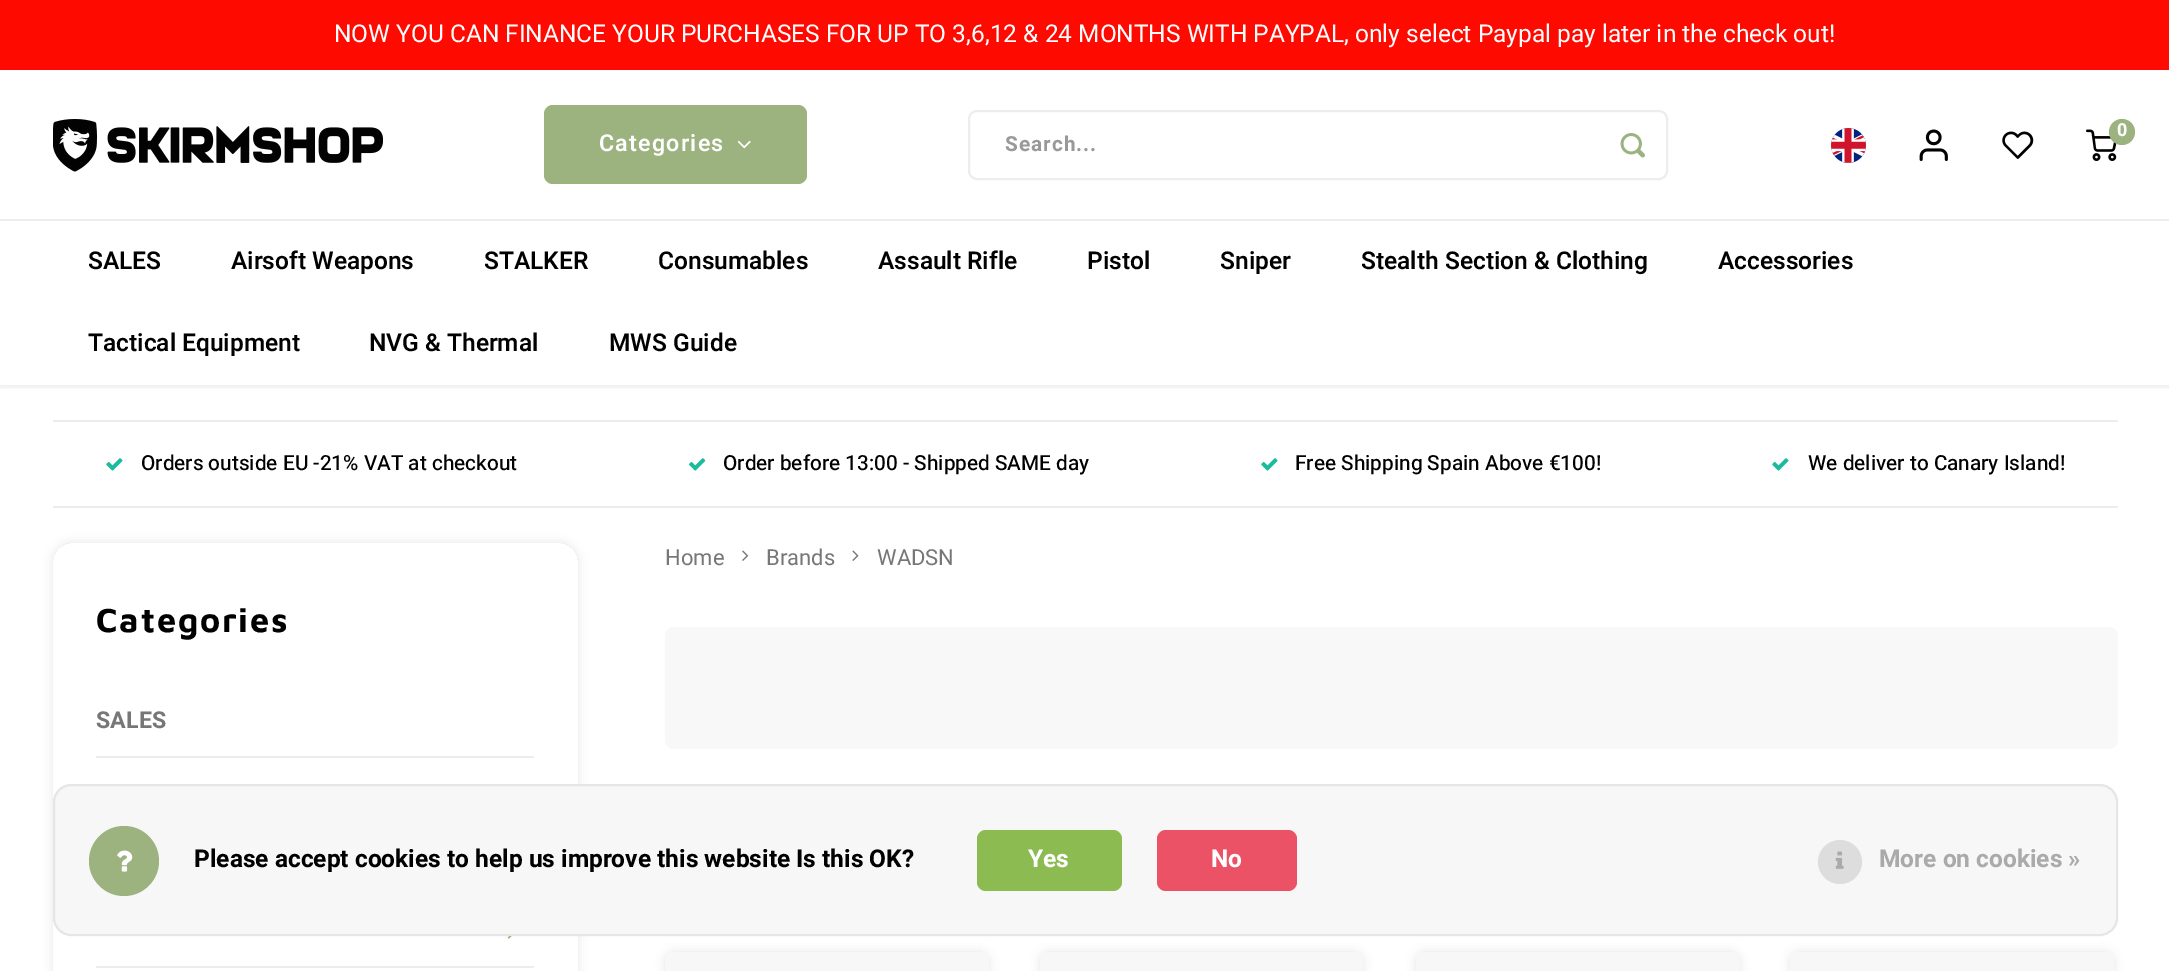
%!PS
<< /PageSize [2169 971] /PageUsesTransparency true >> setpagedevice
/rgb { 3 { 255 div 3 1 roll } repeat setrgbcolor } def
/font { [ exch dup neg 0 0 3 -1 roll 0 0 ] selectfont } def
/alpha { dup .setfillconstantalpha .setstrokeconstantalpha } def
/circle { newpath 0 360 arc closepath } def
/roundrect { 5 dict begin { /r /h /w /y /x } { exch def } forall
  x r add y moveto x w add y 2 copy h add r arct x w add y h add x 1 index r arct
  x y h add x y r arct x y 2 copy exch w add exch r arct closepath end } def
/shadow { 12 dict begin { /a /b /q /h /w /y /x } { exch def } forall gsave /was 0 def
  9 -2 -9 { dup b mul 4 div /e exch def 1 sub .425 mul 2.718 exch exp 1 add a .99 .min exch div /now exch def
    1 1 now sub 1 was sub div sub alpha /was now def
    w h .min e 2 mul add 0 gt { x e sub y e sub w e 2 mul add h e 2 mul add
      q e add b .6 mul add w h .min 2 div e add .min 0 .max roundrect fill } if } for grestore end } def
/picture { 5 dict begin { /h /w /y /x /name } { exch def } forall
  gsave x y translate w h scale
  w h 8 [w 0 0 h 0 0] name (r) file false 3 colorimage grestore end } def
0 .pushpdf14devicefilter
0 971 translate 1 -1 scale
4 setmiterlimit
255 255 255 rgb
0 0 2169 971 rectfill
gsave
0 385 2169 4 rectclip
0 0 0 rgb
0 2 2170 385 0 3.5 0.08 shadow
grestore
255 10 0 rgb
0 0 2169 70 rectfill
(img/1.rgb) 53 119 330 53 picture
(img/2.rgb) 1831 128 35 35 picture
(img/3.rgb) 1919 129 29 32 picture
(img/4.rgb) 2002 131 32 28 picture
(img/5.rgb) 2086 129 31 32 picture
156 179 128 rgb
2122 132 13 circle fill
544 105 263 79 9 roundrect fill
(img/6.rgb) 737 140 14 9 picture
237 237 237 rgb
2 setlinewidth
969 111 698 68 8 roundrect stroke
(img/7.rgb) 1620 133 25 25 picture
[
  [0 219 2169 2 237 237 237]
  [53 420 2065 2 237 237 237]
  [53 506 2065 2 237 237 237]
] { aload pop rgb rectfill } forall
(img/8.rgb) 106 458 17 13 picture
(img/9.rgb) 689 458 17 13 picture
(img/8.rgb) 1261 458 17 13 picture
(img/8.rgb) 1772 458 17 13 picture
(img/10.rgb) 742 550 7 11 picture
(img/11.rgb) 852 550 7 11 picture
248 248 248 rgb
665 627 1453 122 9 roundrect fill
0 0 0 rgb
665 952 324 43 9 5 0.1 shadow
247 247 247 rgb
674 952 moveto 980 952 lineto 985 952 989 956 989 961 curveto 989 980 lineto 665 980 lineto 665 961 lineto 665 956 669 952 674 952 curveto closepath fill
0 0 0 rgb
1040 952 323 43 9 5 0.1 shadow
247 247 247 rgb
1049 952 moveto 1354 952 lineto 1359 952 1363 956 1363 961 curveto 1363 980 lineto 1040 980 lineto 1040 961 lineto 1040 956 1044 952 1049 952 curveto closepath fill
0 0 0 rgb
1416 952 324 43 9 5 0.1 shadow
247 247 247 rgb
1425 952 moveto 1731 952 lineto 1736 952 1740 956 1740 961 curveto 1740 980 lineto 1416 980 lineto 1416 961 lineto 1416 956 1420 952 1425 952 curveto closepath fill
0 0 0 rgb
1790 952 324 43 9 5 0.1 shadow
247 247 247 rgb
1799 952 moveto 2105 952 lineto 2110 952 2114 956 2114 961 curveto 2114 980 lineto 1790 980 lineto 1790 961 lineto 1790 956 1794 952 1799 952 curveto closepath fill
gsave
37 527 moveto 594 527 lineto 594 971 lineto 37 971 lineto closepath 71 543 moveto 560 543 lineto 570 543 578 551 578 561 curveto 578 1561 lineto 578 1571 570 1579 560 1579 curveto 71 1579 lineto 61 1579 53 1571 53 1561 curveto 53 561 lineto 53 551 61 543 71 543 curveto closepath eoclip newpath
0 0 0 rgb
53 543 525 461 18 5 0.1 shadow
grestore
237 237 237 rgb
96 756 438 2 rectfill
(img/12.rgb) 507 936 5 3 picture
96 966 438 2 rectfill
247 247 247 rgb
53 784 2065 152 18 roundrect fill
0.07 alpha
0 0 0 rgb
54 785 2063 150 17 roundrect stroke
1 alpha
156 179 128 rgb
124 861 35 circle fill
(img/13.rgb) 117 850 16 22 picture
140 187 82 rgb
977 830 145 61 9 roundrect fill
235 82 101 rgb
1157 830 140 61 9 roundrect fill
221 221 221 rgb
1840 862 22 circle fill
(img/14.rgb) 1835 851 9 18 picture
/Heebo-Regular 24.5 font
255 255 255 rgb
334 42 moveto (NOW YOU CAN FINANCE YOUR PURCHASES FOR UP TO 3,6,12 & 24 MONTHS WITH PAYPAL, only select Paypal pay later in the check out!) show
/Heebo-Bold 18 font
2117 136 moveto (0) show
/Heebo-SemiBold 23.25 font
599 151 moveto 1.25 0 (Categories) ashow
/Heebo-Bold 20.8 font
153 153 153 rgb
1005 151 moveto 1 0 (Search...) ashow
/Heebo-SemiBold 24.5 font
0 0 0 rgb
[
  [(SALES) 88 269]
  [(Airsoft Weapons) 231 269]
  [(STALKER) 484 269]
  [(Consumables) 658 269]
  [(Assault Rifle) 878 269]
  [(Pistol) 1087 269]
  [(Sniper) 1220 269]
  [(Stealth Section & Clothing) 1361 269]
  [(Accessories) 1718 269]
  [(Tactical Equipment) 88 351]
  [(NVG & Thermal) 369 351]
  [(MWS Guide) 609 351]
] { aload pop moveto show } forall
/Heebo-Medium 20.8 font
[
  [(Orders outside EU -21% VAT at checkout) 141 470]
  [(Order before 13:00 - Shipped SAME day) 723 470]
  [(Free Shipping Spain Above €100!) 1295 470]
  [(We deliver to Canary Island!) 1808 470]
] { aload pop moveto show } forall
/Heebo-Regular 22 font
119 119 119 rgb
[
  [(Home) 665 565]
  [(Brands) 766 565]
  [(WADSN) 877 565]
] { aload pop moveto show } forall
/MavenPro-Bold 34.25 font
0 0 0 rgb
96 632 moveto 1.75 0 (Categories) ashow
/Heebo-Bold 23.25 font
119 119 119 rgb
96 728 moveto (SALES) show
/Heebo-Bold 24.5 font
0 0 0 rgb
194 867 moveto (Please accept cookies to help us improve this website Is this OK?) show
255 255 255 rgb
1028 867 moveto (Yes) show
1211 867 moveto (No) show
170 170 170 rgb
1879 867 moveto (More on cookies ») show
.poppdf14devicefilter showpage
